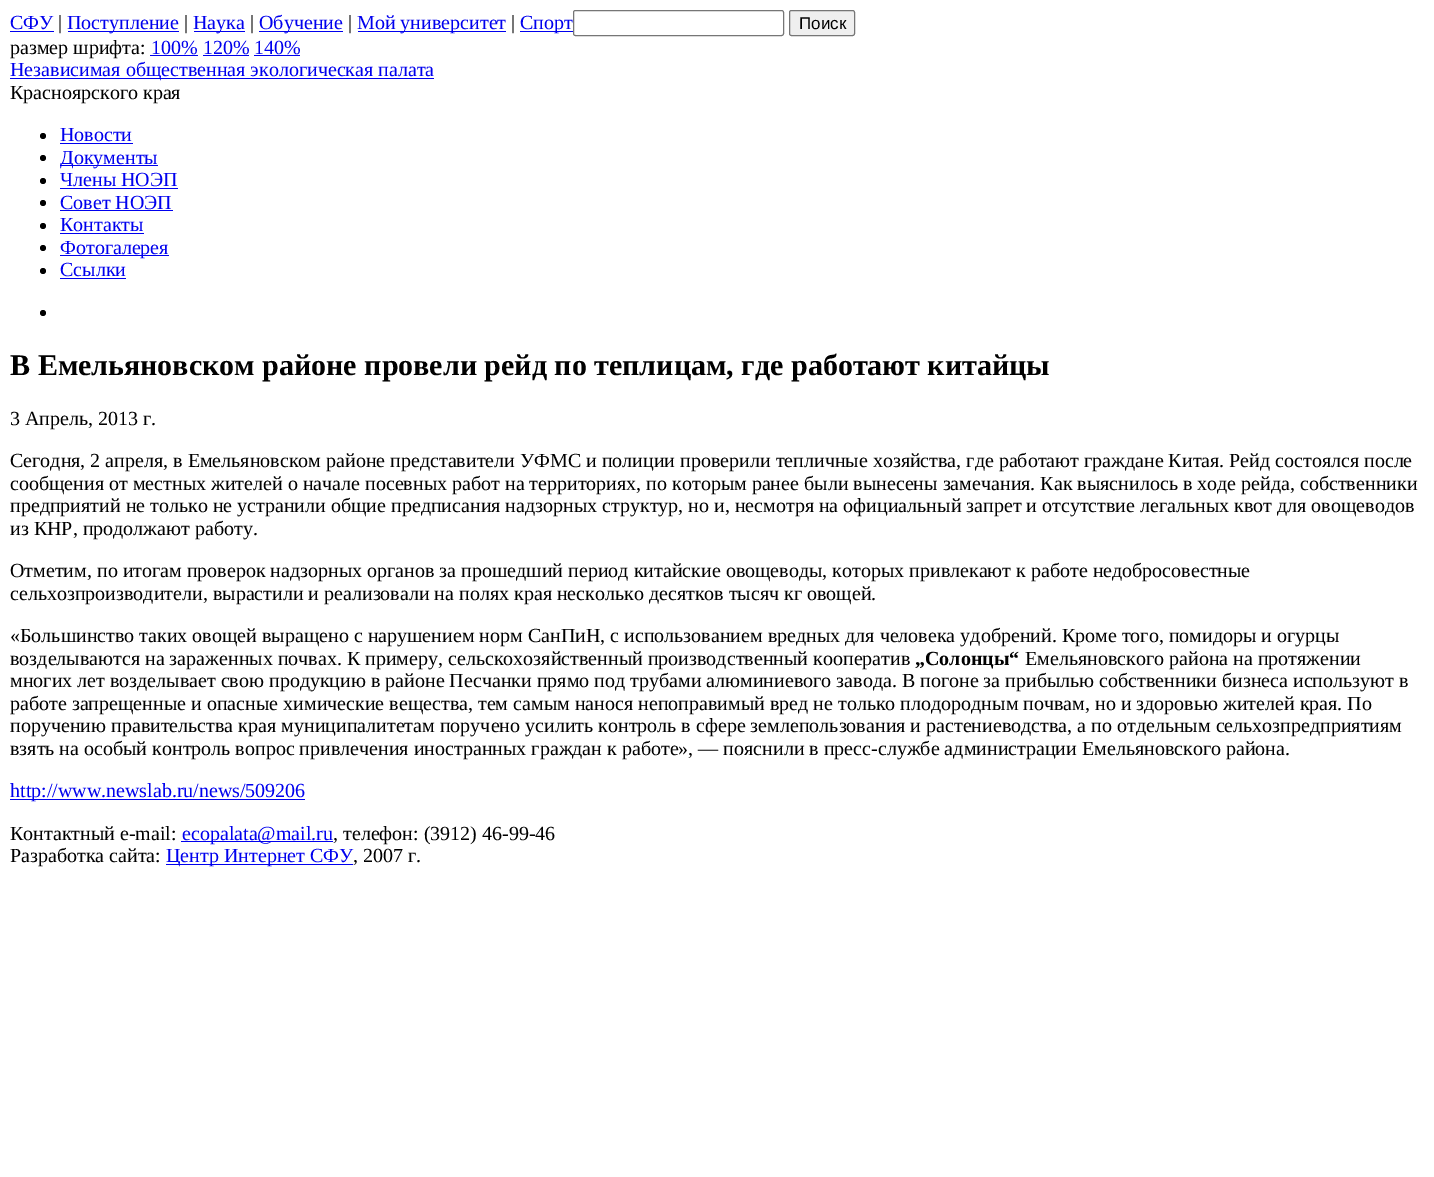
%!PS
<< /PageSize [1434 1177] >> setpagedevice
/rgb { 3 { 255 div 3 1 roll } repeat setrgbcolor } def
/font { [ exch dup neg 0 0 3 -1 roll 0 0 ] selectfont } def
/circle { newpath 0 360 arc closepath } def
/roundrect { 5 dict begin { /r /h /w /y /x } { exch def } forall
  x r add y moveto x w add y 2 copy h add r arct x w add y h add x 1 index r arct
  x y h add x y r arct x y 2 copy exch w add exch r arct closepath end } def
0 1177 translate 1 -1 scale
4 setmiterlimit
255 255 255 rgb
0 0 1434 1177 rectfill
[
  [10 31 44 1 0 0 238]
  [68 31 111 1 0 0 238]
  [194 31 51 1 0 0 238]
  [259 31 84 1 0 0 238]
  [358 31 148 1 0 0 238]
  [520 31 53 1 0 0 238]
] { aload pop rgb rectfill } forall
118 118 118 rgb
573.5 10.5 210 25 2 roundrect stroke
239 239 239 rgb
789.5 10.5 65 25 2 roundrect gsave fill grestore
118 118 118 rgb
stroke
[
  [150 55 48 1 0 0 238]
  [203 55 46 1 0 0 238]
  [254 55 46 1 0 0 238]
  [10 78 424 1 0 0 238]
] { aload pop rgb rectfill } forall
0 0 0 rgb
43 136 3 circle fill
0 0 238 rgb
60 143 73 1 rectfill
0 0 0 rgb
43 158 3 circle fill
0 0 238 rgb
60 165 98 1 rectfill
0 0 0 rgb
43 181 3 circle fill
0 0 238 rgb
60 188 118 1 rectfill
0 0 0 rgb
43 203 3 circle fill
0 0 238 rgb
60 210 113 1 rectfill
0 0 0 rgb
43 226 3 circle fill
0 0 238 rgb
60 233 84 1 rectfill
0 0 0 rgb
43 248 3 circle fill
0 0 238 rgb
60 255 109 1 rectfill
0 0 0 rgb
43 271 3 circle fill
0 0 238 rgb
60 278 66 1 rectfill
0 0 0 rgb
43 313 3 circle fill
[
  [10 799 295 1 0 0 238]
  [181 841 152 1 0 0 238]
  [166 864 187 1 0 0 238]
] { aload pop rgb rectfill } forall
/LiberationSerif-Regular 20 font
10 29 moveto (СФУ) show
0 0 0 rgb
58 29 moveto (|) show
0 0 238 rgb
67 29 moveto (Поступление) show
0 0 0 rgb
184 29 moveto (|) show
0 0 238 rgb
193 29 moveto (Наука) show
0 0 0 rgb
250 29 moveto (|) show
0 0 238 rgb
259 29 moveto (Обучение) show
0 0 0 rgb
348 29 moveto (|) show
0 0 238 rgb
357 29 moveto (Мой университет) show
0 0 0 rgb
511 29 moveto (|) show
0 0 238 rgb
520 29 moveto (Спорт) show
/LiberationSans-Regular 17 font
0 0 0 rgb
799 29 moveto (Поиск) show
/LiberationSerif-Regular 20 font
10 54 moveto (размер шрифта:) show
0 0 238 rgb
151 54 moveto (100% 120% 140%) show
10 76 moveto (Независимая общественная экологическая палата) show
0 0 0 rgb
10 99 moveto (Красноярского края) show
0 0 238 rgb
[
  [(Новости) 60 141]
  [(Документы) 60 164]
  [(Члены НОЭП) 60 186]
  [(Совет НОЭП) 60 209]
  [(Контакты) 60 231]
  [(Фотогалерея) 60 254]
  [(Ссылки) 60 276]
] { aload pop moveto show } forall
/LiberationSerif-Bold 30 font
0 0 0 rgb
10 375 moveto (В Емельяновском районе провели рейд по теплицам, где работают китайцы) show
/LiberationSerif-Regular 20 font
[
  [(3 Апрель, 2013 г.) 10 425]
  [(Сегодня, 2 апреля, в Емельяновском районе представители УФМС и полиции проверили тепличные хозяйства, где работают граждане Китая. Рейд состоялся после) 10 467]
  [(сообщения от местных жителей о начале посевных работ на территориях, по которым ранее были вынесены замечания. Как выяснилось в ходе рейда, собственники) 10 490]
  [(предприятий не только не устранили общие предписания надзорных структур, но и, несмотря на официальный запрет и отсутствие легальных квот для овощеводов) 10 512]
  [(из КНР, продолжают работу.) 10 535]
  [(Отметим, по итогам проверок надзорных органов за прошедший период китайские овощеводы, которых привлекают к работе недобросовестные) 10 577]
  [(сельхозпроизводители, вырастили и реализовали на полях края несколько десятков тысяч кг овощей.) 10 600]
  [(«Большинство таких овощей выращено с нарушением норм СанПиН, с использованием вредных для человека удобрений. Кроме того, помидоры и огурцы) 10 642]
  [(возделываются на зараженных почвах. К примеру, сельскохозяйственный производственный кооператив) 10 665]
] { aload pop moveto show } forall
/LiberationSerif-Bold 20 font
915 665 moveto („Солонцы“) show
/LiberationSerif-Regular 20 font
[
  [(Емельяновского района на протяжении) 1025 665]
  [(многих лет возделывает свою продукцию в районе Песчанки прямо под трубами алюминиевого завода. В погоне за прибылью собственники бизнеса используют в) 10 687]
  [(работе запрещенные и опасные химические вещества, тем самым нанося непоправимый вред не только плодородным почвам, но и здоровью жителей края. По) 10 710]
  [(поручению правительства края муниципалитетам поручено усилить контроль в сфере землепользования и растениеводства, а по отдельным сельхозпредприятиям) 10 732]
  [(взять на особый контроль вопрос привлечения иностранных граждан к работе», — пояснили в пресс-службе администрации Емельяновского района.) 10 755]
] { aload pop moveto show } forall
0 0 238 rgb
10 797 moveto (http://www.newslab.ru/news/509206) show
0 0 0 rgb
10 840 moveto (Контактный e-mail:) show
0 0 238 rgb
182 840 moveto (ecopalata@mail.ru) show
0 0 0 rgb
333 840 moveto (, телефон: \(3912\) 46-99-46) show
10 862 moveto (Разработка сайта:) show
0 0 238 rgb
166 862 moveto (Центр Интернет СФУ) show
0 0 0 rgb
353 862 moveto (, 2007 г.) show
showpage
